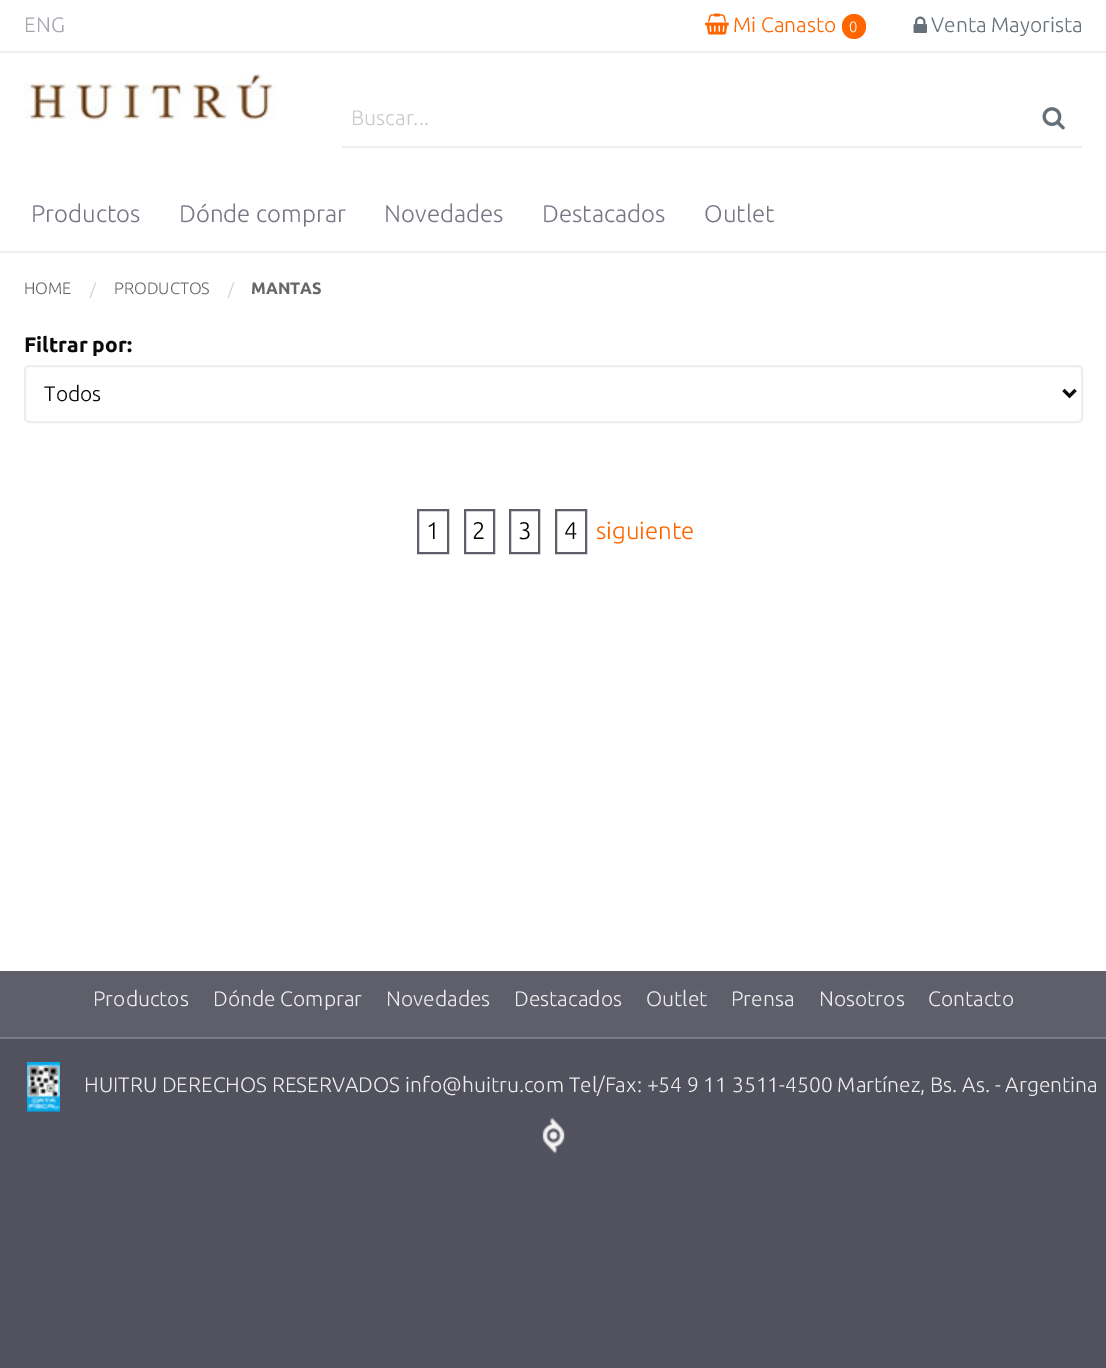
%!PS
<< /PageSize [1106 1368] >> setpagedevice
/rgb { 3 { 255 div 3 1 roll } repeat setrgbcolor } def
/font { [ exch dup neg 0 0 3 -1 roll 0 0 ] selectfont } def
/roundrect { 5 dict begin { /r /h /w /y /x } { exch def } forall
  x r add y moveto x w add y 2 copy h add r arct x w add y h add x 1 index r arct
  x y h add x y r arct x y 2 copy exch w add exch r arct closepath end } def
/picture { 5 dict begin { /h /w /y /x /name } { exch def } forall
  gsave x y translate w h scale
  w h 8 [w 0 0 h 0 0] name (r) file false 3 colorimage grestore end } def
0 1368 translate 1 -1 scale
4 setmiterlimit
82 82 95 rgb
0 0 1106 1368 rectfill
255 255 255 rgb
0 0 1106 251 rectfill
238 238 238 rgb
0 51 1106 2 rectfill
(img/1.rgb) 705 13 24 22 picture
255 102 0 rgb
842 14 24 25 12 roundrect fill
(img/2.rgb) 913 16 14 17 picture
(img/3.rgb) 24 72 252 49 picture
238 238 238 rgb
342 146 740 2 rectfill
(img/4.rgb) 1042 107 23 23 picture
255 255 255 rgb
0 253 1106 718 rectfill
238 238 238 rgb
0 251 1106 2 rectfill
2 setlinewidth
25 366 1057 56 4 roundrect stroke
10 10 10 rgb
3 setlinewidth
1063.5 390 moveto 1069.5 396 lineto 1075.5 390 lineto stroke
95 95 107 rgb
2 setlinewidth
418 510 30 43 rectstroke
465 510 29 43 rectstroke
510 510 29 43 rectstroke
556 510 30 43 rectstroke
0 971 1106 66 rectfill
123 123 133 rgb
0 1037 1106 2 rectfill
(img/5.rgb) 27 1062 33 50 picture
(img/6.rgb) 542 1117 23 37 picture
/Ubuntu-Light 21 font
165 165 175 rgb
24 32 moveto (ENG) show
255 102 0 rgb
733 32 moveto (Mi Canasto) show
/Ubuntu-Light 15 font
255 255 255 rgb
849 32 moveto (0) show
/Ubuntu-Light 21 font
101 112 121 rgb
931 32 moveto (Venta Mayorista) show
202 202 202 rgb
351 125 moveto (Buscar...) show
/Ubuntu-Light 24 font
119 119 133 rgb
[
  [(Productos) 31 222]
  [(Dónde comprar) 179 222]
  [(Novedades) 384 222]
  [(Destacados) 542 222]
  [(Outlet) 704 222]
] { aload pop moveto show } forall
/Ubuntu-Light 16.5 font
102 102 102 rgb
24 294 moveto (HOME) show
202 202 202 rgb
90 295 moveto (/) show
102 102 102 rgb
114 294 moveto (PRODUCTOS) show
202 202 202 rgb
228 295 moveto (/) show
/Ubuntu-Bold 16.5 font
102 102 102 rgb
251 294 moveto (MANTAS) show
/Ubuntu-Bold 21 font
10 10 10 rgb
24 352 moveto (Filtrar por:) show
/Ubuntu-Light 21 font
44 401 moveto (Todos) show
/Ubuntu-Light 24 font
0 0 0 rgb
[
  [(1) 426 539]
  [(2) 472 539]
  [(3) 518 539]
  [(4) 564 539]
] { aload pop moveto show } forall
255 102 0 rgb
596 539 moveto (siguiente) show
/Ubuntu-Light 21 font
237 237 237 rgb
[
  [(Productos) 93 1006]
  [(Dónde Comprar) 213 1006]
  [(Novedades) 386 1006]
  [(Destacados) 514 1006]
  [(Outlet) 646 1006]
  [(Prensa) 731 1006]
  [(Nosotros) 819 1006]
  [(Contacto) 928 1006]
  [(HUITRU DERECHOS RESERVADOS info@huitru.com Tel/Fax: +54 9 11 3511-4500 Martínez, Bs. As. - Argentina) 84 1092]
] { aload pop moveto show } forall
showpage
